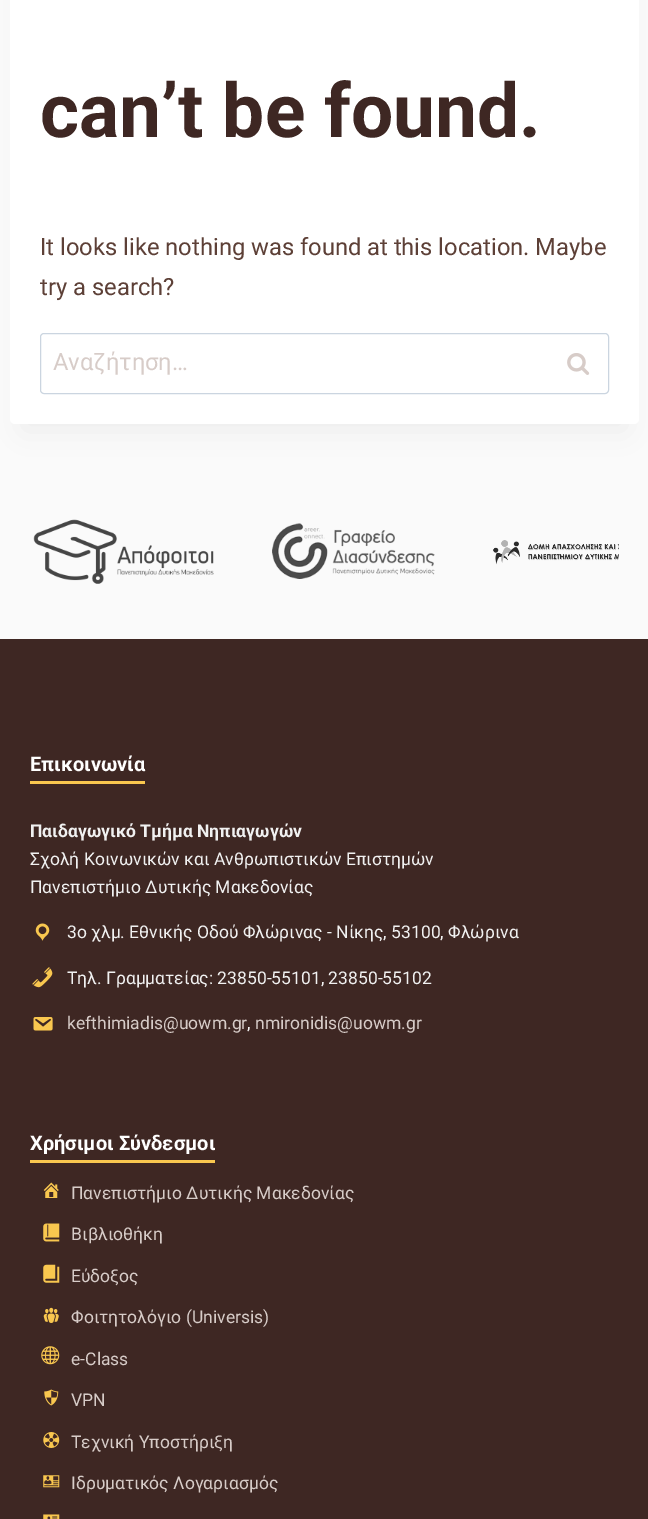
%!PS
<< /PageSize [648 1519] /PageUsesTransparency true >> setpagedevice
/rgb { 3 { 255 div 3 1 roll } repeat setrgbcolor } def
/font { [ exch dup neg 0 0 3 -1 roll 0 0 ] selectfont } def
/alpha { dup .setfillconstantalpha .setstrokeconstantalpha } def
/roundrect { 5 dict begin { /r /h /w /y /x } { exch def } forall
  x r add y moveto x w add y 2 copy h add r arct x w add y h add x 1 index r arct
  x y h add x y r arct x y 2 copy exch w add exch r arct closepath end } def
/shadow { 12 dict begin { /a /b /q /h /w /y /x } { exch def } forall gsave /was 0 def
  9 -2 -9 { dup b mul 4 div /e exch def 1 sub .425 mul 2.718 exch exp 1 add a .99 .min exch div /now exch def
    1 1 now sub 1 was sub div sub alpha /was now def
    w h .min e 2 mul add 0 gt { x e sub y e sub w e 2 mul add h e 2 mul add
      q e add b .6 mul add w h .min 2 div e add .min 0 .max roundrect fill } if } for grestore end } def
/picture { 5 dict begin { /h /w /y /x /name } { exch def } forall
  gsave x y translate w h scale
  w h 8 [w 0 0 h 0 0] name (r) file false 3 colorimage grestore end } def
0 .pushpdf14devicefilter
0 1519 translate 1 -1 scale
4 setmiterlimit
250 250 250 rgb
0 0 648 1519 rectfill
0 0 0 rgb
23 -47 603 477 0 15.5 0.05 shadow
255 255 255 rgb
10 -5 629 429 5 roundrect fill
203 213 224 rgb
40.5 333.5 568 60 3.5 roundrect stroke
(img/1.rgb) 567 353 23 22 picture
(img/2.rgb) 33 519 181 65 picture
(img/3.rgb) 272 523 163 56 picture
(img/4.rgb) 493 540 126 25 picture
62 39 35 rgb
0 639 648 880 rectfill
249 199 79 rgb
30 781 115 3 rectfill
(img/5.rgb) 35 923 15 18 picture
(img/6.rgb) 32 967 21 21 picture
(img/7.rgb) 33 1017 20 14 picture
30 1160 185 3 rectfill
(img/8.rgb) 43 1182 16 16 picture
(img/9.rgb) 43 1223 17 19 picture
(img/10.rgb) 43 1264 17 19 picture
(img/11.rgb) 43 1307 16 16 picture
(img/12.rgb) 41 1346 19 19 picture
(img/13.rgb) 44 1389 15 17 picture
(img/14.rgb) 43 1432 17 16 picture
(img/15.rgb) 43 1475 17 13 picture
(img/16.rgb) 43 1514 17 5 picture
/Roboto-Bold 75 font
62 39 35 rgb
40 137 moveto (can’t be found.) show
/Roboto-Regular 23.75 font
93 64 55 rgb
40 255 moveto (It looks like nothing was found at this location. Maybe) show
40 295 moveto (try a search?) show
215 204 200 rgb
53 370 moveto (Αναζήτηση…) show
/Roboto-Bold 20 font
255 255 255 rgb
30 771 moveto (Επικοινωνία) show
/Roboto-Bold 17.5 font
241 241 241 rgb
30 837 moveto (Παιδαγωγικό Τμήμα Νηπιαγωγών) show
/Roboto-Regular 17.5 font
[
  [(Σχολή Κοινωνικών και Ανθρωπιστικών Επιστημών) 30 865]
  [(Πανεπιστήμιο Δυτικής Μακεδονίας) 30 893]
  [(3ο χλμ. Εθνικής Οδού Φλώρινας - Νίκης, 53100, Φλώρινα) 67 938]
  [(Τηλ. Γραμματείας: 23850-55101, 23850-55102) 67 984]
] { aload pop moveto show } forall
215 204 200 rgb
67 1029 moveto (kefthimiadis@uowm.gr) show
241 241 241 rgb
247 1029 moveto (,) show
215 204 200 rgb
255 1029 moveto (nmironidis@uowm.gr) show
/Roboto-Bold 20 font
255 255 255 rgb
30 1150 moveto (Χρήσιμοι Σύνδεσμοι) show
/Roboto-Regular 17.5 font
215 204 200 rgb
[
  [(Πανεπιστήμιο Δυτικής Μακεδονίας) 71 1199]
  [(Βιβλιοθήκη) 71 1240]
  [(Εύδοξος) 71 1282]
  [(Φοιτητολόγιο \(Universis\)) 71 1323]
  [(e-Class) 71 1365]
  [(VPN) 71 1406]
  [(Τεχνική Υποστήριξη) 71 1448]
  [(Ιδρυματικός Λογαριασμός) 71 1489]
] { aload pop moveto show } forall
.poppdf14devicefilter showpage
